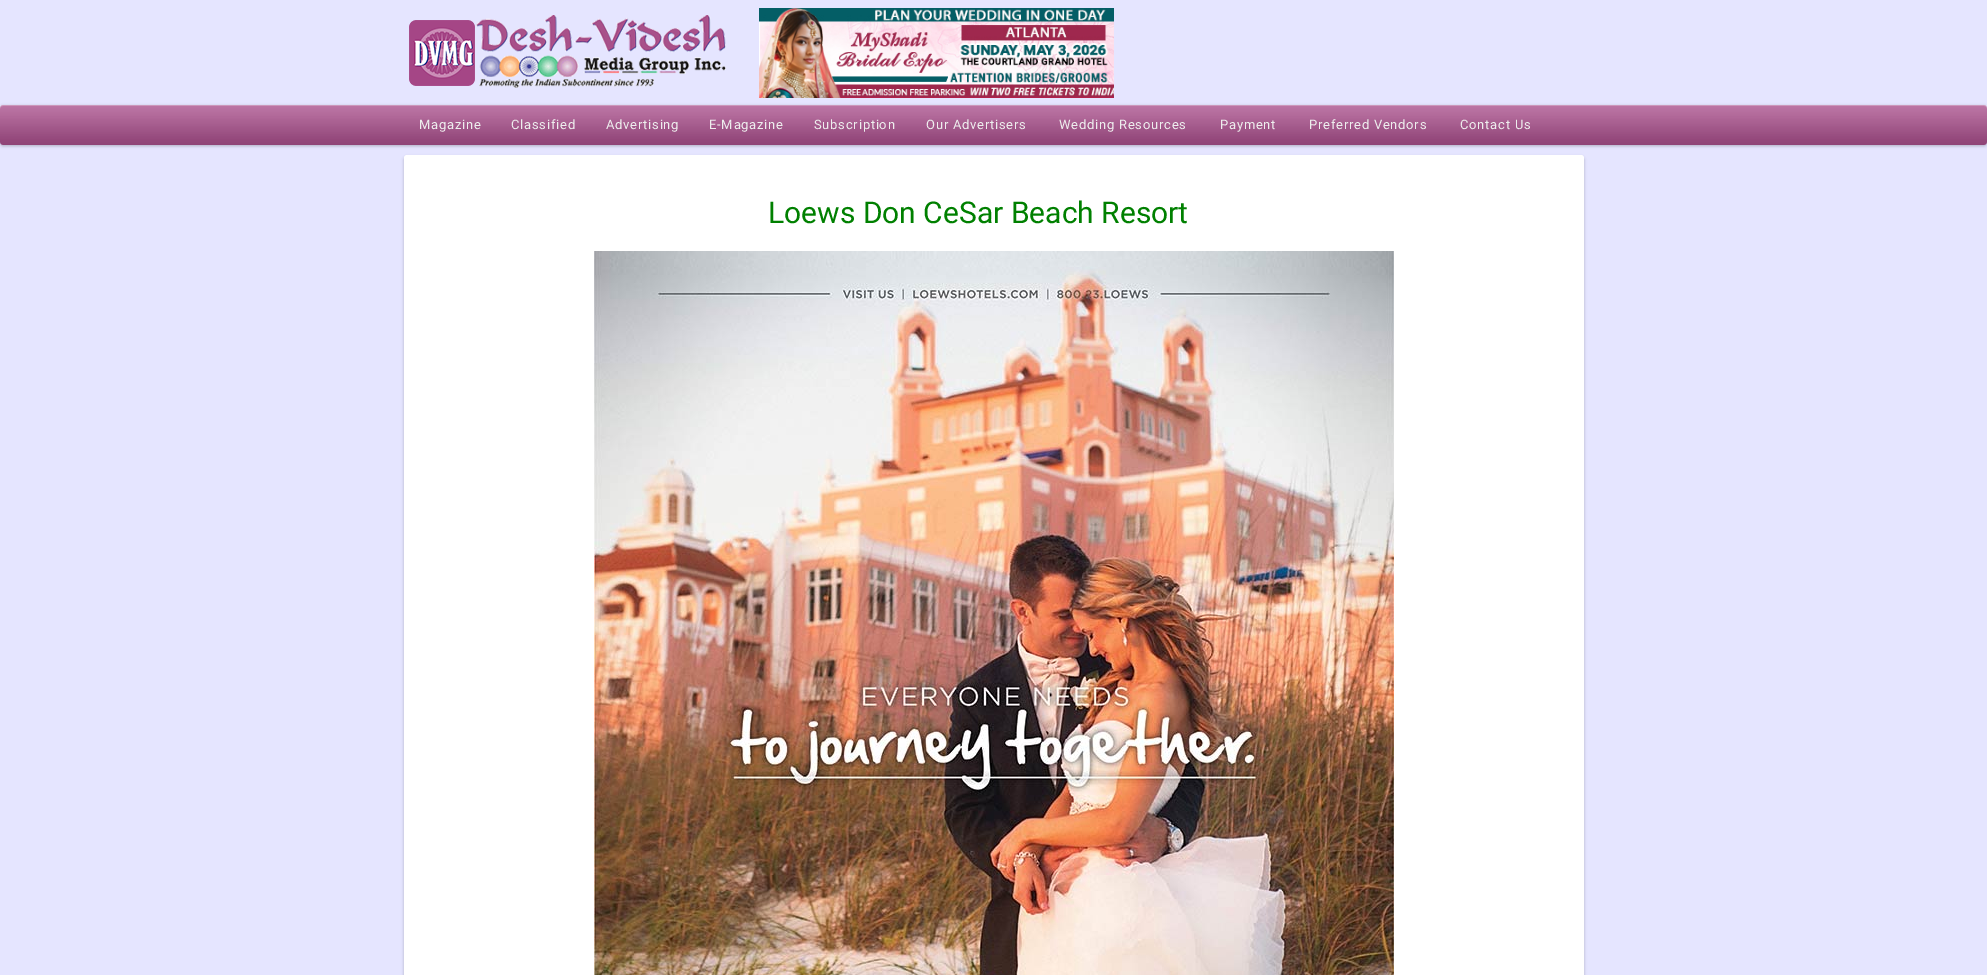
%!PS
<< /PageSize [1987 975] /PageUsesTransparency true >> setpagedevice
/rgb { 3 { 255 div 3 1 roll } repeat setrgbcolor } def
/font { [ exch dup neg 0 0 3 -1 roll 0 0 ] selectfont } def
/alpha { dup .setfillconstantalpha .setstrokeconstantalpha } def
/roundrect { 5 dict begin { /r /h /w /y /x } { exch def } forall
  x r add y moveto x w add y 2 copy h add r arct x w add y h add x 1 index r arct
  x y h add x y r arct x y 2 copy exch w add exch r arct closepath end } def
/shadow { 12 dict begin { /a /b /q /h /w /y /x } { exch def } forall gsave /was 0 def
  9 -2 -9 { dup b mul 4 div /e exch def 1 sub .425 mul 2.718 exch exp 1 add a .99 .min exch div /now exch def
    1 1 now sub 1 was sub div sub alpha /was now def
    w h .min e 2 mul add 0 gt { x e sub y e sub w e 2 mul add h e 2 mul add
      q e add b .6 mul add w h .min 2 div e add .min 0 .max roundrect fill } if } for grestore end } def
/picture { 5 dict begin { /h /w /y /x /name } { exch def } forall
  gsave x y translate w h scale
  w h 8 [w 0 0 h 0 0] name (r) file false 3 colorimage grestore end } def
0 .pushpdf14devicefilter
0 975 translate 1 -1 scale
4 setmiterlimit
229 229 255 rgb
0 0 1987 975 rectfill
(img/1.rgb) 409 15 317 73 picture
(img/2.rgb) 759 8 355 90 picture
0 0 0 rgb
0 106 1987 40 3 1.5 0.23 shadow
165 70 134 rgb
0 105 1987 40 3 roundrect fill
(img/3.rgb) 0 105 1987 40 picture
0.23 alpha
255 255 255 rgb
3 106 moveto 1984 106 lineto 1986 106 1987 107 1987 109 curveto 1987 108 lineto 1987 106 1986 105 1984 105 curveto 3 105 lineto 1 105 0 106 0 108 curveto 0 109 lineto 0 107 1 106 3 106 curveto closepath fill
1 alpha
0 0 0 rgb
404 157 1180 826 3 1.5 0.2 shadow
255 255 255 rgb
404 155 1180 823 3 roundrect fill
(img/4.rgb) 594 251 800 724 picture
/Roboto-Regular 13 font
238 238 238 rgb
419 129 moveto 0.75 0 (Magazine) ashow
511 129 moveto 0.75 0 (Classified) ashow
606 129 moveto 0.75 0 (Advertising) ashow
709 129 moveto 0.75 0 (E-Magazine) ashow
814 129 moveto 0.75 0 (Subscription) ashow
926 129 moveto 0.75 0 (Our Advertisers) ashow
1059 129 moveto 0.75 0 (Wedding Resources) ashow
1220 129 moveto 0.75 0 (Payment) ashow
1309 129 moveto 0.75 0 (Preferred Vendors) ashow
1460 129 moveto 0.75 0 (Contact Us) ashow
/Roboto-Regular 30 font
0 128 0 rgb
768 223 moveto (Loews Don CeSar Beach Resort) show
.poppdf14devicefilter showpage
